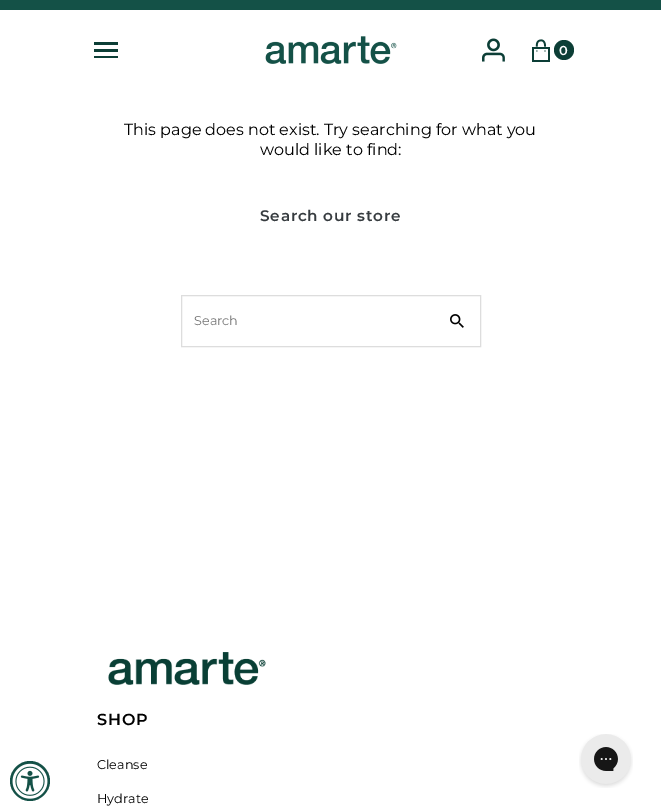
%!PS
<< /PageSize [661 811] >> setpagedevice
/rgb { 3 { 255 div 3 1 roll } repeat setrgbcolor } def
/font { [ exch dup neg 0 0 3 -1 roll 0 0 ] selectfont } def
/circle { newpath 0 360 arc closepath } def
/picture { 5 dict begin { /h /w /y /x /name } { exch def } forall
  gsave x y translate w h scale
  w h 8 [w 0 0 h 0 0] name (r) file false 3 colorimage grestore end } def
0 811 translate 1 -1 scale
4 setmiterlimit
255 255 255 rgb
0 0 661 811 rectfill
20 81 71 rgb
30 781 20 circle fill
(img/1.rgb) 12 763 36 36 picture
[
  [0 0 661 10 20 81 71]
  [94 56 24 2 12 62 54]
  [94 49 24 3 12 62 54]
  [94 42 24 3 12 62 54]
] { aload pop rgb rectfill } forall
(img/2.rgb) 265 36 132 28 picture
(img/3.rgb) 482 38 23 24 picture
(img/4.rgb) 532 39 18 23 picture
564 50 10 circle fill
221 221 221 rgb
181.5 295.5 299 51 rectstroke
(img/5.rgb) 450 314 14 14 picture
(img/6.rgb) 108 652 158 33 picture
(img/7.rgb) 579 734 54 54 picture
/Montserrat-SemiBold 13 font
255 255 255 rgb
559 55 moveto 1 0 (0) ashow
/Montserrat-Regular 16 font
0 0 0 rgb
124 135 moveto (This page does not exist. Try searching for what you) show
260 155 moveto (would like to find:) show
/Montserrat-SemiBold 15.25 font
54 59 63 rgb
260 221 moveto 0.75 0 (Search our store) ashow
/Montserrat-Regular 12.75 font
117 117 117 rgb
194 325 moveto (Search) show
/Montserrat-SemiBold 16 font
0 0 0 rgb
97 725 moveto 1 0 (SHOP) ashow
/Montserrat-Regular 12.75 font
97 769 moveto (Cleanse) show
97 803 moveto (Hydrate) show
showpage
